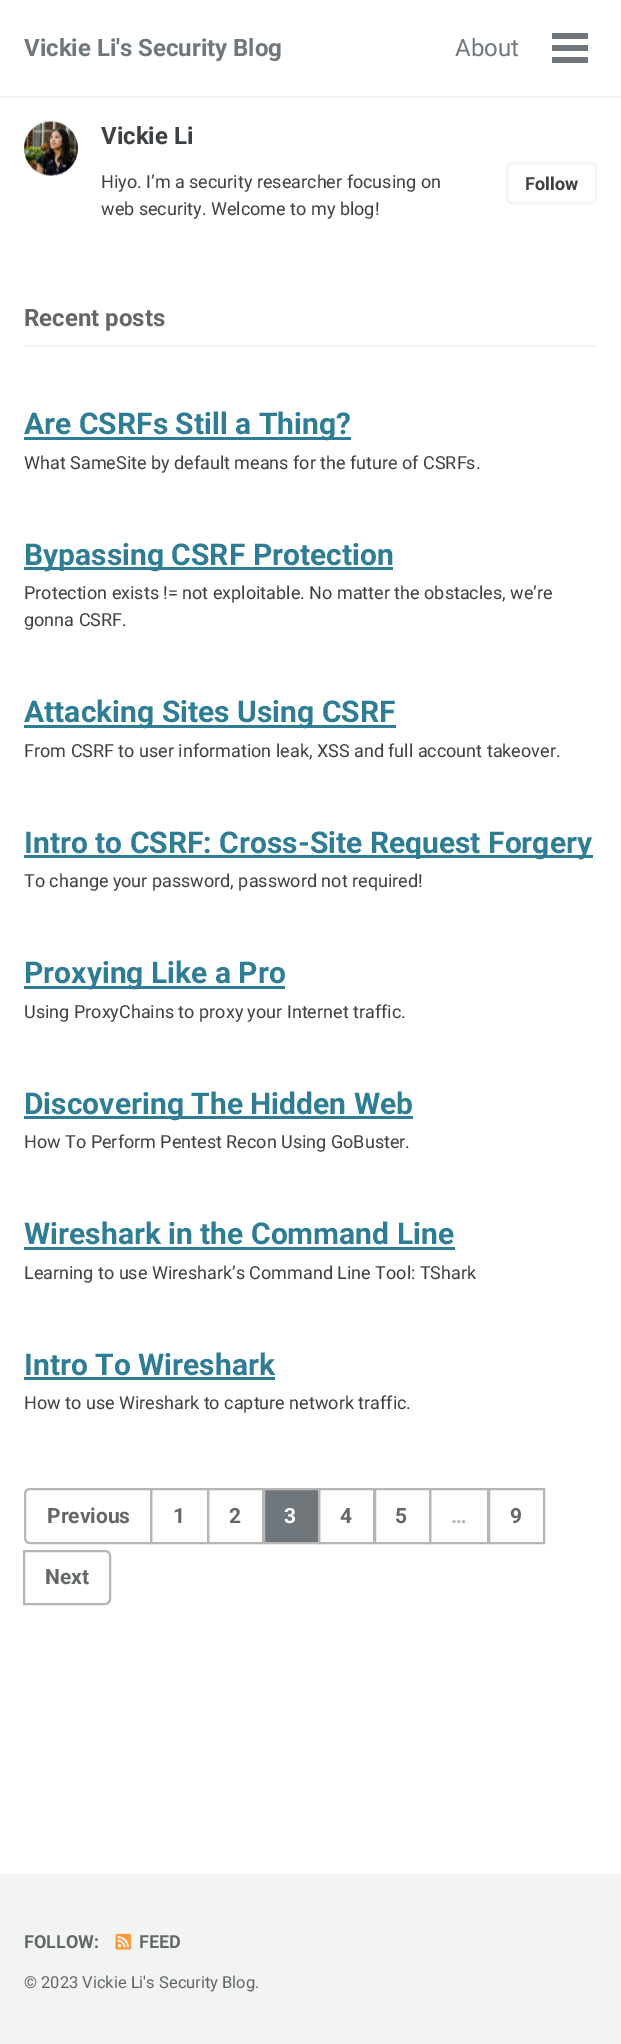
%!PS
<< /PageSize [621 2044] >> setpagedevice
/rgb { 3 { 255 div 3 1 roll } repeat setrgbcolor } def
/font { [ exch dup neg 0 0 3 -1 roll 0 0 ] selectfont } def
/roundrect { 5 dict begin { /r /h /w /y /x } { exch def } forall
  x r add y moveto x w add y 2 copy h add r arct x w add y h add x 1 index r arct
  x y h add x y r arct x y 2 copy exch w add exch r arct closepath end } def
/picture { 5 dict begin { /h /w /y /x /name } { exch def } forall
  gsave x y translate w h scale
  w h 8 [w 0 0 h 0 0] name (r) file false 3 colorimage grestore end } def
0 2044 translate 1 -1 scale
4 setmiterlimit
255 255 255 rgb
0 0 621 2044 rectfill
[
  [0 96 621 2 242 243 243]
  [552 45 36 6 111 119 125]
  [552 33 36 6 111 119 125]
  [552 57 36 6 111 119 125]
] { aload pop rgb rectfill } forall
(img/1.rgb) 24 121 54 55 picture
242 243 243 rgb
2 setlinewidth
507 163 89 40 5 roundrect stroke
[
  [24 345 573 2 242 243 243]
  [24 437 327 3 47 125 149]
  [24 567 369 3 47 125 149]
  [24 725 372 3 47 125 149]
  [24 855 569 3 47 125 149]
  [24 986 261 3 47 125 149]
  [24 1116 389 3 47 125 149]
  [24 1247 431 3 47 125 149]
  [24 1377 251 3 47 125 149]
] { aload pop rgb rectfill } forall
182 182 182 rgb
30 1489 moveto 151 1489 lineto 151 1543 lineto 30 1543 lineto 27 1543 25 1541 25 1538 curveto 25 1494 lineto 25 1491 27 1489 30 1489 curveto closepath stroke
151 1489 57 54 rectstroke
208 1489 55 54 rectstroke
111 119 125 rgb
264 1489 moveto 319 1489 lineto 319 1543 lineto 264 1543 lineto closepath gsave fill grestore
182 182 182 rgb
stroke
319 1489 55 54 rectstroke
375 1489 55 54 rectstroke
430 1489 58 54 rectstroke
489 1489 55 54 rectstroke
24 1551 moveto 105 1551 lineto 108 1551 110 1553 110 1556 curveto 110 1599 lineto 110 1602 108 1604 105 1604 curveto 24 1604 lineto closepath stroke
242 243 243 rgb
0 1874 621 170 rectfill
(img/2.rgb) 115 1933 17 17 picture
/Roboto-Bold 24 font
111 119 125 rgb
24 56 moveto (Vickie Li's Security Blog) show
/Roboto-Regular 24 font
455 56 moveto (About) show
/Roboto-Bold 24 font
61 65 68 rgb
101 144 moveto (Vickie Li) show
/Roboto-Regular 18 font
101 188 moveto (Hiyo. I’m a security researcher focusing on) show
101 215 moveto (web security. Welcome to my blog!) show
/Roboto-Bold 18 font
525 190 moveto (Follow) show
/Roboto-Bold 24 font
100 103 105 rgb
24 326 moveto (Recent posts) show
/Roboto-Bold 30 font
47 125 149 rgb
24 434 moveto (Are CSRFs Still a Thing?) show
/Roboto-Regular 18 font
61 65 68 rgb
24 469 moveto (What SameSite by default means for the future of CSRFs.) show
/Roboto-Bold 30 font
47 125 149 rgb
24 565 moveto (Bypassing CSRF Protection) show
/Roboto-Regular 18 font
61 65 68 rgb
24 599 moveto (Protection exists != not exploitable. No matter the obstacles, we’re) show
24 626 moveto (gonna CSRF.) show
/Roboto-Bold 30 font
47 125 149 rgb
24 722 moveto (Attacking Sites Using CSRF) show
/Roboto-Regular 18 font
61 65 68 rgb
24 757 moveto (From CSRF to user information leak, XSS and full account takeover.) show
/Roboto-Bold 30 font
47 125 149 rgb
24 853 moveto (Intro to CSRF: Cross-Site Request Forgery) show
/Roboto-Regular 18 font
61 65 68 rgb
24 887 moveto (To change your password, password not required!) show
/Roboto-Bold 30 font
47 125 149 rgb
24 983 moveto (Proxying Like a Pro) show
/Roboto-Regular 18 font
61 65 68 rgb
24 1018 moveto (Using ProxyChains to proxy your Internet traffic.) show
/Roboto-Bold 30 font
47 125 149 rgb
24 1114 moveto (Discovering The Hidden Web) show
/Roboto-Regular 18 font
61 65 68 rgb
24 1148 moveto (How To Perform Pentest Recon Using GoBuster.) show
/Roboto-Bold 30 font
47 125 149 rgb
24 1244 moveto (Wireshark in the Command Line) show
/Roboto-Regular 18 font
61 65 68 rgb
24 1279 moveto (Learning to use Wireshark’s Command Line Tool: TShark) show
/Roboto-Bold 30 font
47 125 149 rgb
24 1375 moveto (Intro To Wireshark) show
/Roboto-Regular 18 font
61 65 68 rgb
24 1409 moveto (How to use Wireshark to capture network traffic.) show
/Roboto-Bold 21 font
100 103 105 rgb
[
  [(Previous) 47 1523]
  [(1) 173 1523]
  [(2) 229 1523]
] { aload pop moveto show } forall
255 255 255 rgb
284 1523 moveto (3) show
100 103 105 rgb
340 1523 moveto (4) show
395 1523 moveto (5) show
178 179 180 rgb
451 1523 moveto (…) show
100 103 105 rgb
510 1523 moveto (9) show
45 1584 moveto (Next) show
/Roboto-Bold 18 font
24 1948 moveto (FOLLOW:) show
139 1948 moveto (FEED) show
/Roboto-Regular 16.5 font
24 1988 moveto (© 2023 Vickie Li's Security Blog.) show
showpage
